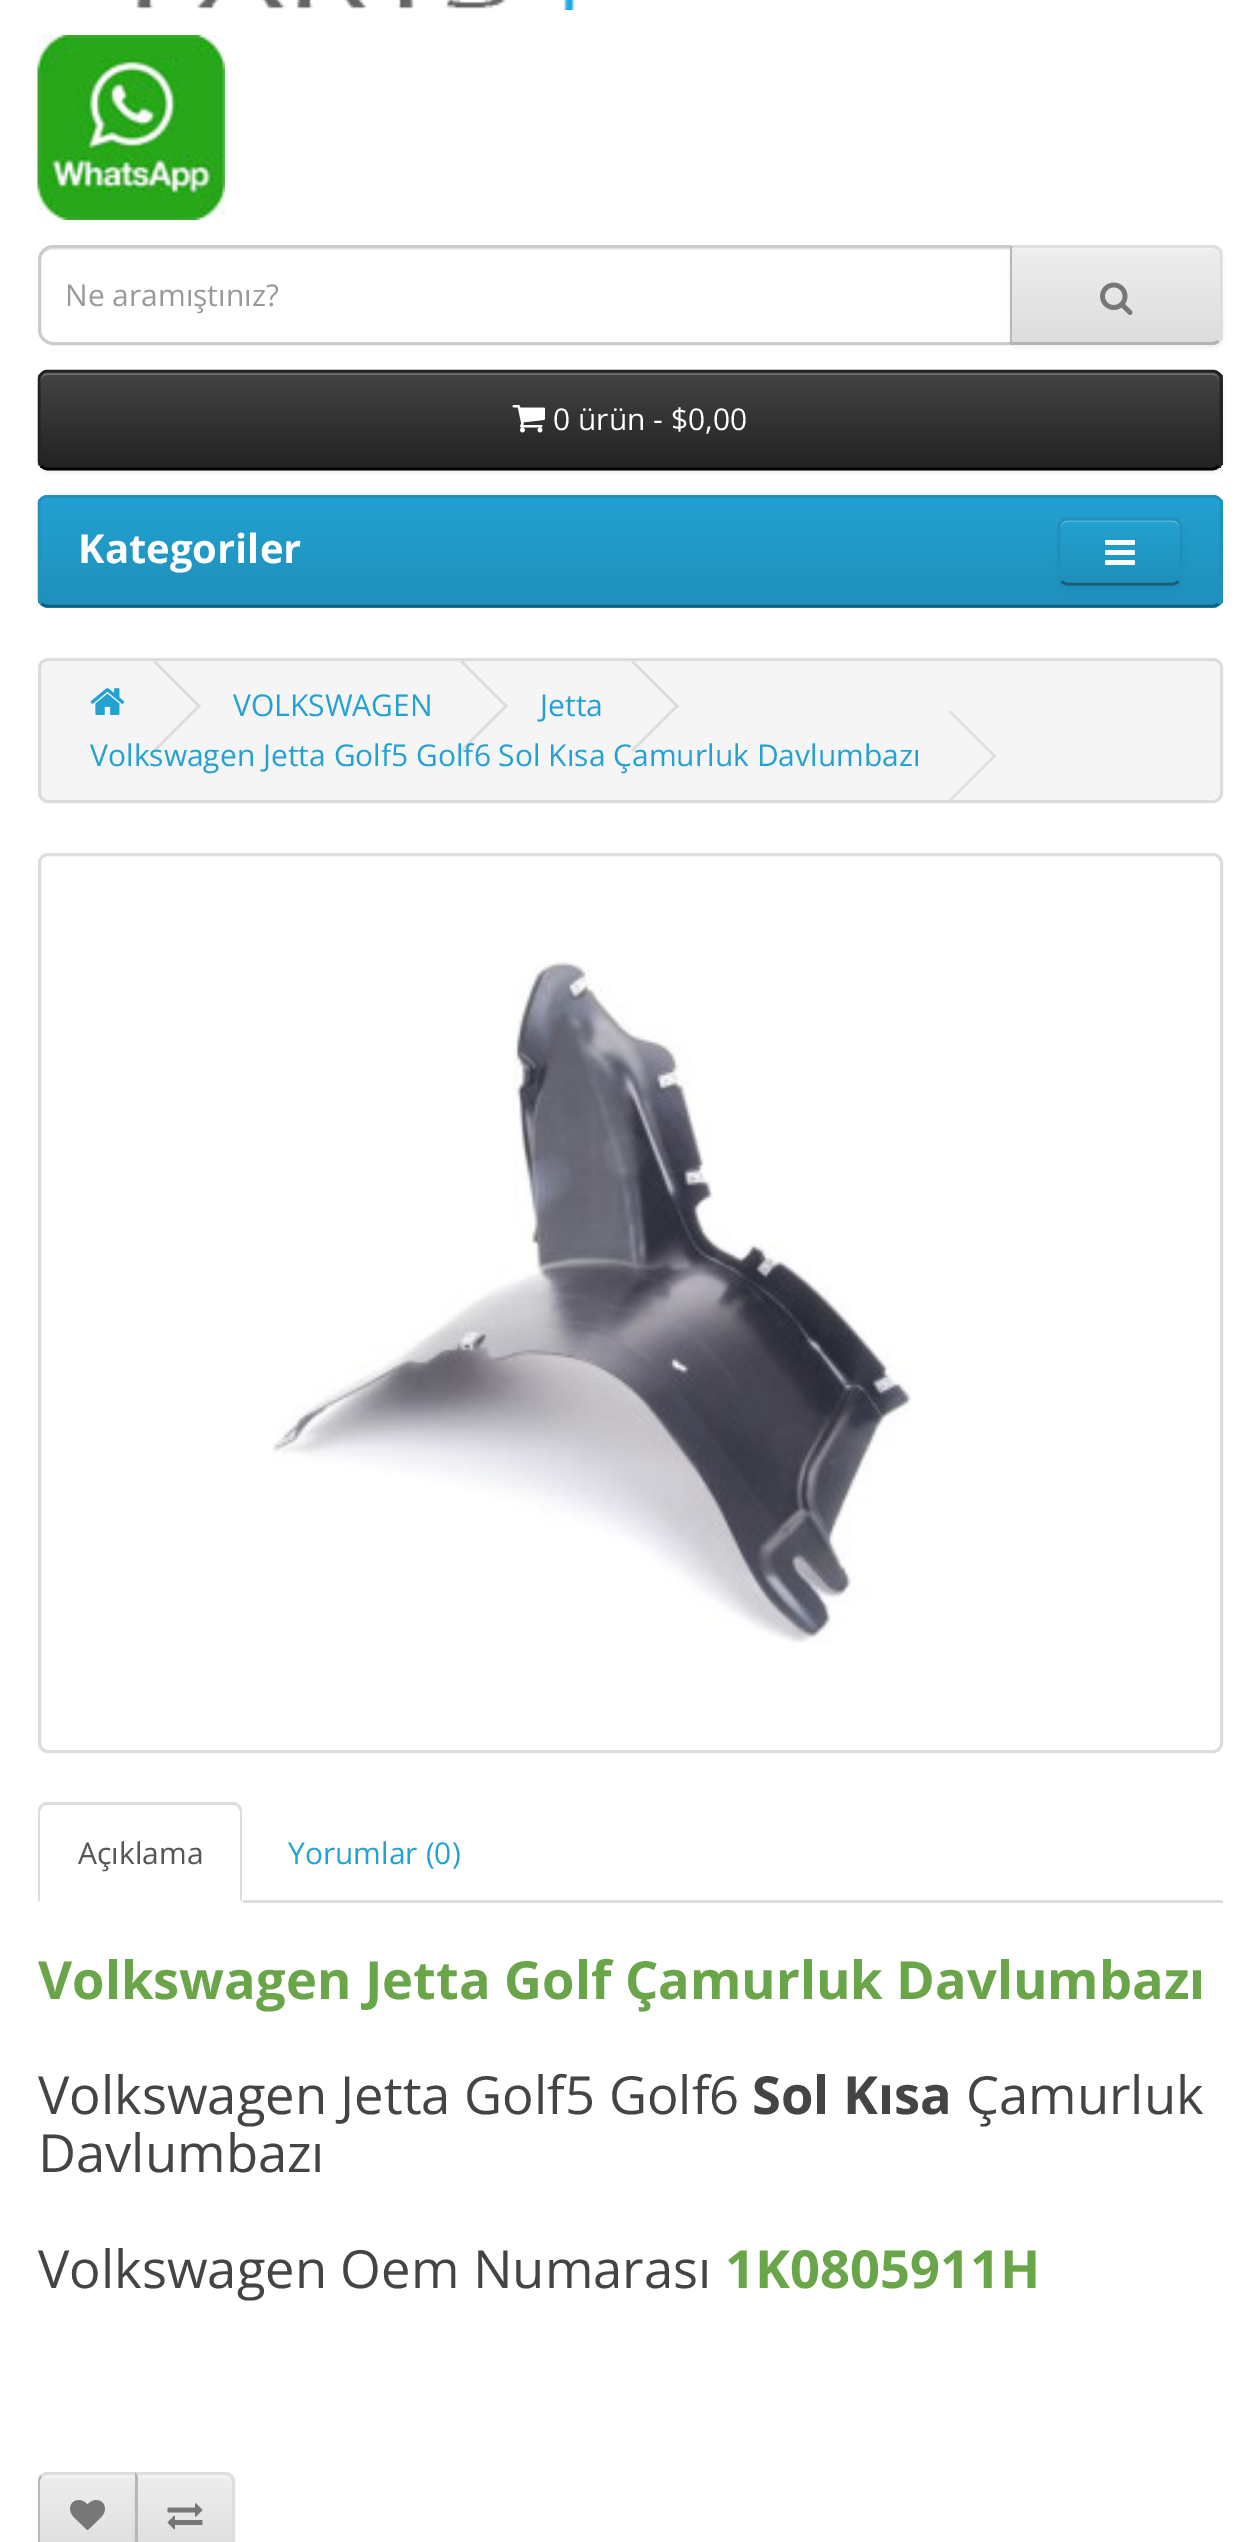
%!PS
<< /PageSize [1258 2542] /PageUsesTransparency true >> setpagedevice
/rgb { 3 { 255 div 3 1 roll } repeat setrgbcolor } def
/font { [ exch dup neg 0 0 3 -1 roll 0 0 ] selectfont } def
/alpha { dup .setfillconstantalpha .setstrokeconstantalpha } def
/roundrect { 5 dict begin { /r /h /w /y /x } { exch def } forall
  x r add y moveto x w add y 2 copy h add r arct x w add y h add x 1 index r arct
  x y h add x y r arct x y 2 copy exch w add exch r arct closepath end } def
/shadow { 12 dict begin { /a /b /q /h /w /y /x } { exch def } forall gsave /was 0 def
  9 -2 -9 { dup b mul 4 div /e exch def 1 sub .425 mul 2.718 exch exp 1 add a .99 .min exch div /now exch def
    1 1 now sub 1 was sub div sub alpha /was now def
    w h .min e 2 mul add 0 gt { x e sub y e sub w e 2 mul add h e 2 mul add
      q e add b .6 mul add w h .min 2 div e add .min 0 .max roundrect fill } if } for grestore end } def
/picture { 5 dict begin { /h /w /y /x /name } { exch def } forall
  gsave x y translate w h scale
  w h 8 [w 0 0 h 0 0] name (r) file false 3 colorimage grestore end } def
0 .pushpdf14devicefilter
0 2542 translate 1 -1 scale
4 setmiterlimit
255 255 255 rgb
0 0 1258 2542 rectfill
(img/1.rgb) 134 0 442 10 picture
(img/2.rgb) 37 35 188 185 picture
236 236 236 rgb
52 250 moveto 1010 250 lineto 1010 248 lineto 53 248 lineto 45 248 40 255 40 262 curveto 40 256 46 250 52 250 curveto closepath fill
204 204 204 rgb
3 setlinewidth
53 246.5 moveto 1011.5 246.5 lineto 1011.5 343.5 lineto 53 343.5 lineto 45.5 343.5 39.5 337.5 39.5 330 curveto 39.5 260 lineto 39.5 252.5 45.5 246.5 53 246.5 curveto closepath stroke
0 0 0 rgb
1010 248 213 100 10 2.5 0.05 shadow
231 231 231 rgb
1010 245 moveto 1213 245 lineto 1218.5 245 1223 249.5 1223 255 curveto 1223 335 lineto 1223 340.5 1218.5 345 1213 345 curveto 1010 345 lineto closepath fill
gsave
1010 245 moveto 1213 245 lineto 1218.5 245 1223 249.5 1223 255 curveto 1223 335 lineto 1223 340.5 1218.5 345 1213 345 curveto 1010 345 lineto closepath clip newpath
gsave 1012 248 moveto 1223 248 lineto 1223 343 lineto 1012 343 lineto closepath clip newpath
<< /ShadingType 2 /ColorSpace /DeviceRGB /Coords [1116 248 1116 343] /Extend [true true] /Function << /FunctionType 2 /Domain [0 1] /C0 [0.933 0.933 0.933] /C1 [0.867 0.867 0.867] /N 1 >> >> shfill grestore
grestore
241 241 241 rgb
1013 248 moveto 1013 250 lineto 1212 250 lineto 1217 250 1220 253 1220 258 curveto 1220 253 1218 248 1212 248 curveto closepath fill
221 221 221 rgb
1010 245 moveto 1013 248 lineto 1212 248 lineto 1214 248 1216 249 1218 250 curveto 1219 248 lineto 1218 246 1215 245 1212 245 curveto closepath fill
1219 248 moveto 1221 250 1222 252 1222 255 curveto 1222 335 lineto 1222 338 1221 340 1219 342 curveto 1218 340 lineto 1219 339 1220 337 1220 335 curveto 1220 255 lineto 1220 253 1219 251 1218 250 curveto closepath fill
179 179 179 rgb
1212 345 moveto 1215 345 1218 344 1219 342 curveto 1218 340 lineto 1216 341 1214 342 1212 342 curveto 1013 342 lineto 1010 345 lineto closepath fill
183 183 183 rgb
1010 245 moveto 1010 345 lineto 1013 342 lineto 1012 342 lineto 1012 248 lineto 1013 248 lineto closepath fill
(img/3.rgb) 1100 282 33 33 picture
0 0 0 rgb
38 373 1185 100 10 2.5 0.05 shadow
54 54 54 rgb
38 370 1185 100 10 roundrect fill
gsave
38 370 1185 100 10 roundrect clip newpath
gsave 38 373 moveto 1223 373 lineto 1223 468 lineto 38 468 lineto closepath clip newpath
<< /ShadingType 2 /ColorSpace /DeviceRGB /Coords [630 372 630 468] /Extend [true true] /Function << /FunctionType 2 /Domain [0 1] /C0 [0.267 0.267 0.267] /C1 [0.133 0.133 0.133] /N 1 >> >> shfill grestore
grestore
105 105 105 rgb
48 375 moveto 1212 375 lineto 1217 375 1220 378 1220 382 curveto 1220 381 lineto 1220 377 1216 373 1212 373 curveto 48 373 lineto 44 373 40 377 40 381 curveto 40 382 lineto 40 378 43 375 48 375 curveto closepath fill
0 0 0 rgb
2.5 setlinewidth
1218.5 466 moveto 1217 468 1215 469 1212.5 469 curveto 47.5 469 lineto 45 469 43 468 41.5 466 curveto stroke
34 34 34 rgb
41.5 466 moveto 39.5 464.5 39 462.5 39 460 curveto 39 380 lineto 39 377.5 39.5 375.5 41.5 374 curveto 43 372 45 371 47.5 371 curveto 1212.5 371 lineto 1215 371 1217 372 1218.5 374 curveto 1220.5 375.5 1221 377.5 1221 380 curveto 1221 460 lineto 1221 462.5 1220.5 464.5 1218.5 466 curveto stroke
(img/4.rgb) 512 405 33 28 picture
34 154 200 rgb
38 495 1185 113 10 roundrect fill
gsave
38 495 1185 113 10 roundrect clip newpath
gsave 38 498 moveto 1223 498 lineto 1223 605 lineto 38 605 lineto closepath clip newpath
<< /ShadingType 2 /ColorSpace /DeviceRGB /Coords [630 497 630 605] /Extend [true true] /Function << /FunctionType 2 /Domain [0 1] /C0 [0.137 0.631 0.82] /C1 [0.122 0.565 0.733] /N 1 >> >> shfill grestore
grestore
20 94 122 rgb
1218.5 603.5 moveto 1217 605.5 1215 606 1212.5 606 curveto 47.5 606 lineto 45 606 43 605.5 41.5 603.5 curveto stroke
31 144 187 rgb
41.5 603.5 moveto 40 602.5 39 600.5 39 598.5 curveto 39 502.5 lineto 40 499 43 496.5 46.5 496.5 curveto 1213.5 496.5 lineto 1217 496.5 1220 499 1221 502.5 curveto 1221 598.5 lineto 1221 600.5 1220 602.5 1218.5 603.5 curveto stroke
0 0 0 rgb
1058 520 125 68 10 2.5 0.05 shadow
gsave
1058 518 125 67 10 roundrect clip newpath
gsave 1058 520 moveto 1183 520 lineto 1183 583 lineto 1058 583 lineto closepath clip newpath
<< /ShadingType 2 /ColorSpace /DeviceRGB /Coords [1120 520 1120 583] /Extend [true true] /Function << /FunctionType 2 /Domain [0 1] /C0 [0.137 0.631 0.82] /C1 [0.122 0.565 0.733] /N 1 >> >> shfill grestore
grestore
0.2 alpha
255 255 255 rgb
1068 522 moveto 1172 522 lineto 1177 522 1180 526 1180 530 curveto 1180 516 1165 520 1155 520 curveto 1085 520 lineto 1075 520 1060 516 1060 530 curveto 1060 526 1063 522 1068 522 curveto closepath fill
1 alpha
20 94 122 rgb
1178.5 581 moveto 1177 583 1175 584 1172.5 584 curveto 1067.5 584 lineto 1065 584 1063 583 1061.5 581 curveto stroke
31 144 187 rgb
1061.5 581 moveto 1059.5 579.5 1059 577.5 1059 575 curveto 1059 527.5 lineto 1059 525 1059.5 523 1061.5 521.5 curveto 1063 519.5 1065 519 1067.5 519 curveto 1172.5 519 lineto 1175 519 1177 519.5 1178.5 521.5 curveto 1180.5 523 1181 525 1181 527.5 curveto 1181 575 lineto 1181 577.5 1180.5 579.5 1178.5 581 curveto stroke
(img/5.rgb) 1105 540 30 25 picture
245 245 245 rgb
39.5 659.5 1182 142 8.5 roundrect gsave fill grestore
221 221 221 rgb
3 setlinewidth
stroke
(img/6.rgb) 90 688 35 27 picture
153 662 moveto 155 660 lineto 201 706 lineto 199 708 lineto closepath fill
153 750 moveto 199 704 lineto 201 706 lineto 155 752 lineto closepath fill
460 662 moveto 462 660 lineto 508 706 lineto 506 708 lineto closepath fill
460 750 moveto 506 704 lineto 508 706 lineto 462 752 lineto closepath fill
631 662 moveto 633 660 lineto 679 706 lineto 677 708 lineto closepath fill
631 750 moveto 677 704 lineto 679 706 lineto 633 752 lineto closepath fill
949 712 moveto 950 710 lineto 996 756 lineto 995 758 lineto closepath fill
949 800 moveto 995 754 lineto 996 756 lineto 950 802 lineto closepath fill
39.5 854.5 1182 897 8.5 roundrect stroke
(img/7.rgb) 272 960 640 683 picture
243 1900 980 3 rectfill
48 1805 moveto 45 1805 43 1806 42 1807 curveto 40 1805 lineto 42 1804 43 1803 45 1802 curveto 235 1802 lineto 237 1803 238 1804 240 1805 curveto 238 1807 lineto 237 1806 235 1805 232 1805 curveto closepath fill
240 1805 moveto 241 1807 242 1810 242 1812 curveto 242 1902 lineto 240 1900 lineto 240 1811 lineto 238 1807 lineto closepath fill
38 1902 moveto 40 1900 lineto 40 1811 lineto 42 1807 lineto 40 1805 lineto 39 1807 38 1810 38 1812 curveto closepath fill
gsave
48 2473 moveto 138 2473 lineto 138 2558 lineto 48 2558 lineto 42.5 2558 38 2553.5 38 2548 curveto 38 2483 lineto 38 2477.5 42.5 2473 48 2473 curveto closepath clip newpath
gsave 38 2475 moveto 135 2475 lineto 135 2542 lineto 38 2542 lineto closepath clip newpath
<< /ShadingType 2 /ColorSpace /DeviceRGB /Coords [88 2475 88 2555] /Extend [true true] /Function << /FunctionType 2 /Domain [0 1] /C0 [0.933 0.933 0.933] /C1 [0.867 0.867 0.867] /N 1 >> >> shfill grestore
grestore
241 241 241 rgb
48 2478 moveto 135 2478 lineto 135 2475 lineto 48 2475 lineto 44 2475 40 2479 40 2483 curveto 40 2485 lineto 40 2481 43 2478 48 2478 curveto closepath fill
221 221 221 rgb
48 2475 moveto 45 2475 43 2476 42 2477 curveto 40 2475 lineto 42 2474 43 2473 45 2472 curveto 138 2472 lineto 135 2475 lineto closepath fill
183 183 183 rgb
40 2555 moveto 39 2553 38 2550 38 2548 curveto 38 2482 lineto 38 2480 39 2477 40 2475 curveto 42 2477 lineto 41 2478 40 2480 40 2482 curveto 40 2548 lineto 40 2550 41 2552 42 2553 curveto closepath fill
(img/8.rgb) 70 2500 35 30 picture
0 0 0 rgb
135 2475 100 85 10 2.5 0.05 shadow
gsave
135 2473 moveto 225 2473 lineto 230.5 2473 235 2477.5 235 2483 curveto 235 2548 lineto 235 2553.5 230.5 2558 225 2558 curveto 135 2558 lineto closepath clip newpath
gsave 137 2475 moveto 235 2475 lineto 235 2542 lineto 137 2542 lineto closepath clip newpath
<< /ShadingType 2 /ColorSpace /DeviceRGB /Coords [185 2475 185 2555] /Extend [true true] /Function << /FunctionType 2 /Domain [0 1] /C0 [0.933 0.933 0.933] /C1 [0.867 0.867 0.867] /N 1 >> >> shfill grestore
grestore
0.2 alpha
255 255 255 rgb
138 2478 moveto 226 2478 lineto 234 2480 232 2491 232 2496 curveto 232 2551 lineto 233 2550 233 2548 233 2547 curveto 233 2483 lineto 233 2479 229 2475 225 2475 curveto 138 2475 lineto closepath fill
1 alpha
221 221 221 rgb
138 2475 moveto 138 2476 lineto 135 2472 lineto 228 2472 lineto 232 2475 lineto 230 2477 lineto 229 2476 227 2475 225 2475 curveto closepath fill
235 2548 moveto 235 2482 lineto 235 2480 234 2477 232 2475 curveto 230 2477 lineto 231 2478 232 2480 232 2482 curveto 232 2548 lineto 232 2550 231 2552 230 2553 curveto 232 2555 lineto 234 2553 235 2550 235 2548 curveto closepath fill
183 183 183 rgb
135 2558 moveto 138 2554 lineto 138 2476 lineto 135 2472 lineto closepath fill
(img/9.rgb) 167 2503 36 27 picture
/OpenSans-Regular 30 font
153 153 153 rgb
65 306 moveto (Ne aramıştınız?) show
255 255 255 rgb
553 430 moveto (0 ürün - $0,00) show
/OpenSans-Bold 40 font
78 563 moveto (Kategoriler) show
/OpenSans-Regular 30 font
35 161 209 rgb
[
  [(VOLKSWAGEN) 233 716]
  [(Jetta) 540 716]
  [(Volkswagen Jetta Golf5 Golf6 Sol Kısa Çamurluk Davlumbazı) 90 766]
] { aload pop moveto show } forall
85 85 85 rgb
78 1864 moveto (Açıklama) show
35 161 209 rgb
288 1864 moveto (Yorumlar \(0\)) show
/OpenSans-Bold 52.5 font
107 165 74 rgb
38 1999 moveto (Volkswagen Jetta Golf Çamurluk Davlumbazı) show
/OpenSans-Regular 52.5 font
68 68 68 rgb
38 2114 moveto (Volkswagen Jetta Golf5 Golf6) show
/OpenSans-Bold 52.5 font
752 2114 moveto (Sol Kısa) show
/OpenSans-Regular 52.5 font
[
  [(Çamurluk) 966 2114]
  [(Davlumbazı) 38 2172]
  [(Volkswagen Oem Numarası) 38 2288]
] { aload pop moveto show } forall
/OpenSans-Bold 52.5 font
107 165 74 rgb
725 2288 moveto (1K0805911H) show
.poppdf14devicefilter showpage
